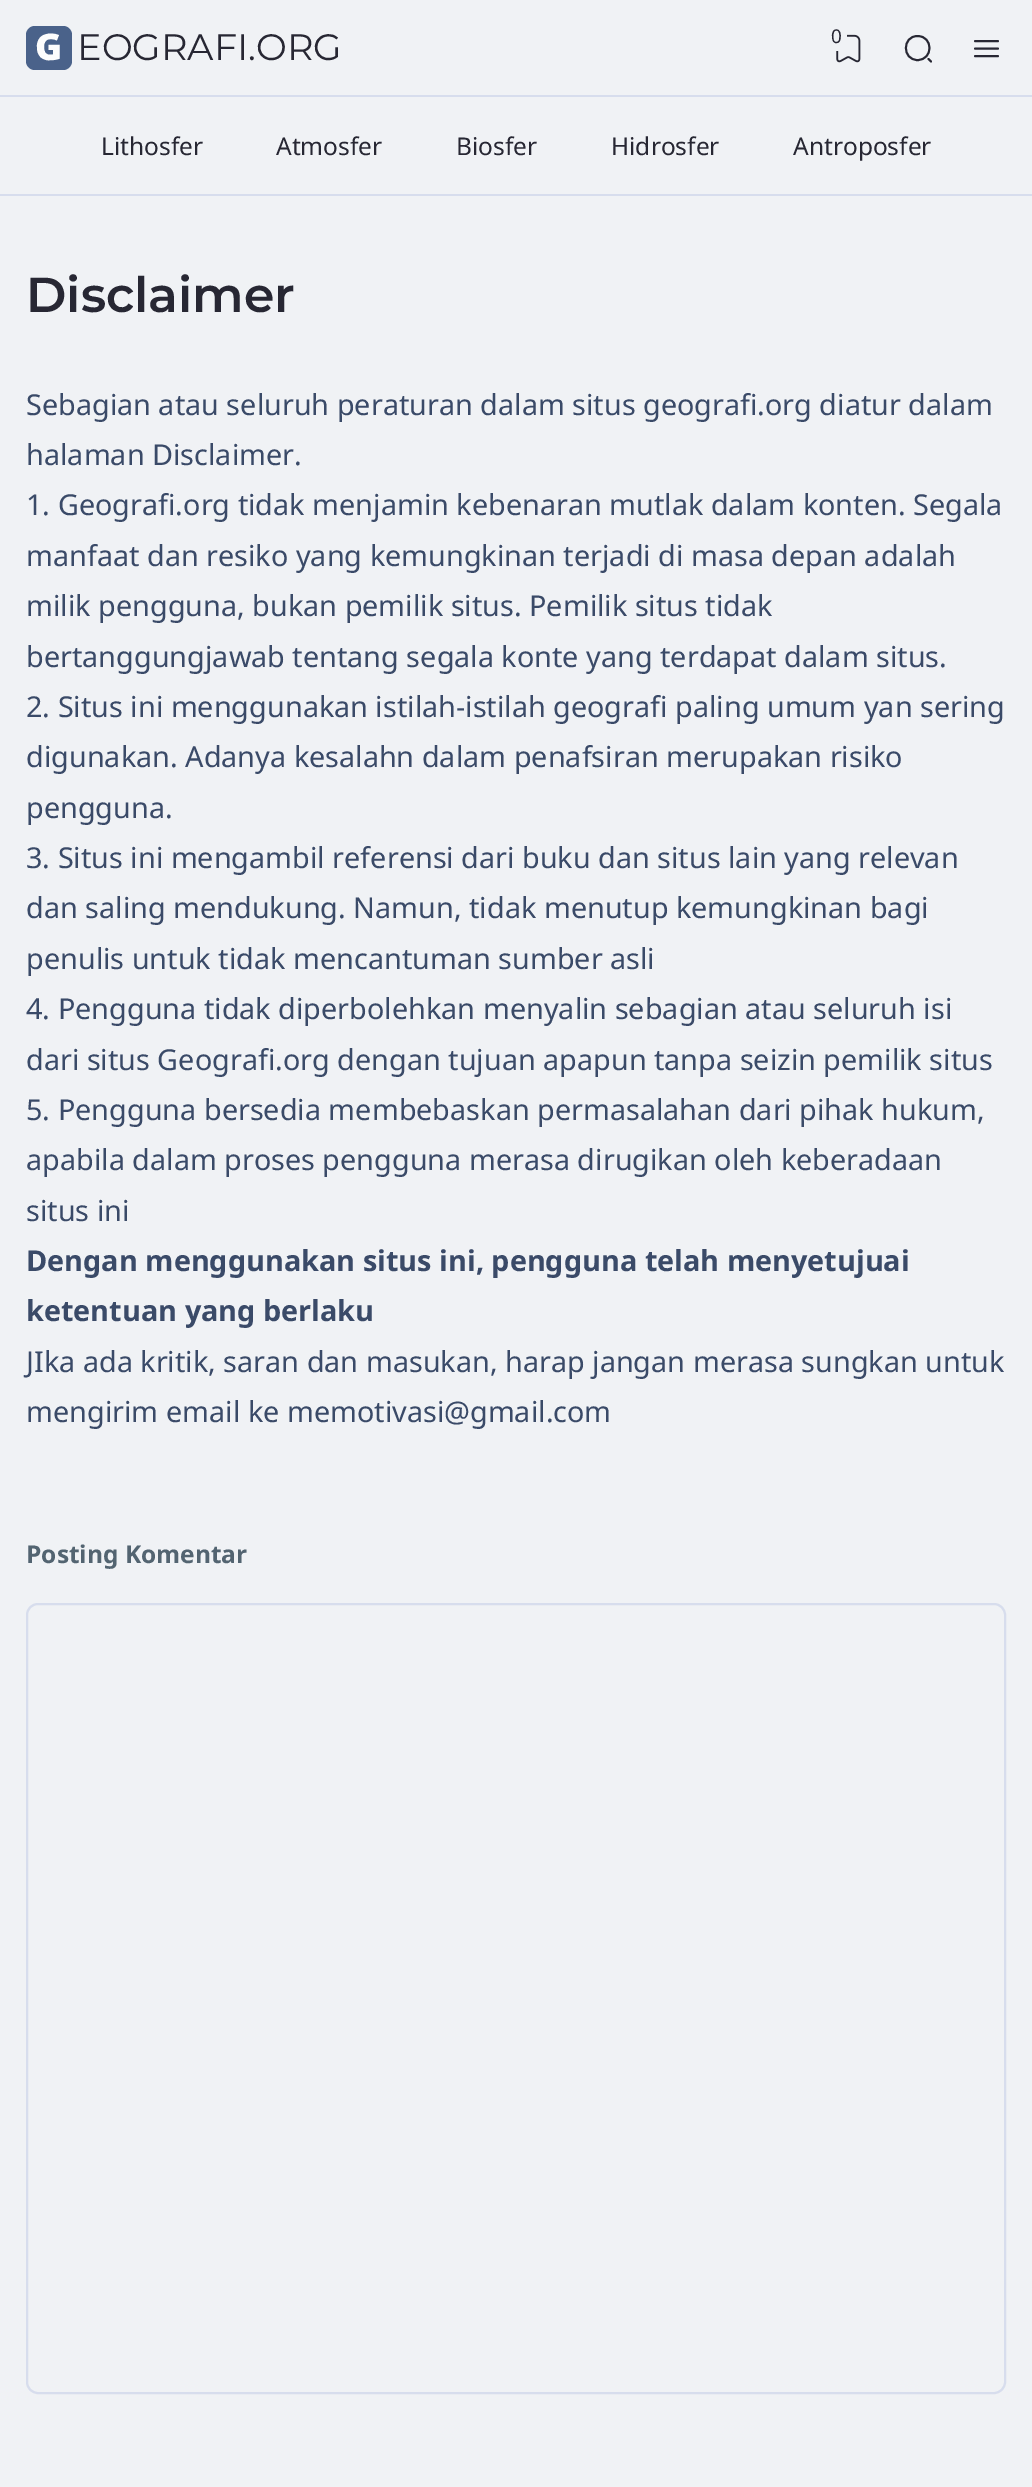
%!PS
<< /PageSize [1032 2487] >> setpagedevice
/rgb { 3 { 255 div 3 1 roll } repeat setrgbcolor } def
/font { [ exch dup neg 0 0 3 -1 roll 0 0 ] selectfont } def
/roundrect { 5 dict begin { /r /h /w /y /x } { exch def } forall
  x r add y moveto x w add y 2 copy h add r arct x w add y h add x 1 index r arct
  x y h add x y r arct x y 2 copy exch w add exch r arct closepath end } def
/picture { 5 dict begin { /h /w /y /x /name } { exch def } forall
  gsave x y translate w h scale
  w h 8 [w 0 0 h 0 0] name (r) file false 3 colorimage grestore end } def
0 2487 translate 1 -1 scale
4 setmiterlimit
240 242 245 rgb
0 0 1032 2487 rectfill
215 221 237 rgb
0 95 1032 2 rectfill
74 98 138 rgb
26 26 46 44 9 roundrect fill
(img/1.rgb) 836 34 25 29 picture
240 242 245 rgb
826 21 21 30 10.5 roundrect fill
39 39 51 rgb
1.9 setlinewidth
1 setlinecap
1 setlinejoin
917.5 60 moveto 933.5 60 933.5 36 917.5 36 curveto 902 36 902 60 917.5 60 curveto closepath 931 61.5 moveto 928.5 59 lineto stroke
975 56 moveto 998 56 lineto 975 48.5 moveto 998 48.5 lineto 975 41 moveto 998 41 lineto stroke
215 221 237 rgb
0 194 1032 2 rectfill
2 setlinewidth
0 setlinecap
0 setlinejoin
27 1604 978 789 11 roundrect stroke
/NotoSans-Black 36.75 font
253 253 253 rgb
35 60 moveto (G) show
/Montserrat-Regular 36.75 font
39 39 51 rgb
77 60 moveto (EOGRAFI.ORG) show
/NotoSans-Regular 19 font
831 43 moveto (0) show
/NotoSans-Regular 24.5 font
[
  [(Lithosfer) 101 155]
  [(Atmosfer) 276 155]
  [(Biosfer) 456 155]
  [(Hidrosfer) 611 155]
  [(Antroposfer) 793 155]
] { aload pop moveto show } forall
/Montserrat-SemiBold 49 font
26 312 moveto (Disclaimer) show
/NotoSans-Regular 28.8 font
58 74 104 rgb
[
  [(Sebagian atau seluruh peraturan dalam situs geografi.org diatur dalam) 26 415]
  [(halaman Disclaimer.) 26 465]
  [(1. Geografi.org tidak menjamin kebenaran mutlak dalam konten. Segala) 26 515]
  [(manfaat dan resiko yang kemungkinan terjadi di masa depan adalah) 26 566]
  [(milik pengguna, bukan pemilik situs. Pemilik situs tidak) 26 616]
  [(bertanggungjawab tentang segala konte yang terdapat dalam situs.) 26 667]
  [(2. Situs ini menggunakan istilah-istilah geografi paling umum yan sering) 26 717]
  [(digunakan. Adanya kesalahn dalam penafsiran merupakan risiko) 26 767]
  [(pengguna.) 26 818]
  [(3. Situs ini mengambil referensi dari buku dan situs lain yang relevan) 26 868]
  [(dan saling mendukung. Namun, tidak menutup kemungkinan bagi) 26 918]
  [(penulis untuk tidak mencantuman sumber asli) 26 969]
  [(4. Pengguna tidak diperbolehkan menyalin sebagian atau seluruh isi) 26 1019]
  [(dari situs Geografi.org dengan tujuan apapun tanpa seizin pemilik situs) 26 1070]
  [(5. Pengguna bersedia membebaskan permasalahan dari pihak hukum,) 26 1120]
  [(apabila dalam proses pengguna merasa dirugikan oleh keberadaan) 26 1170]
  [(situs ini) 26 1221]
] { aload pop moveto show } forall
/NotoSans-Bold 28.8 font
26 1271 moveto (Dengan menggunakan situs ini, pengguna telah menyetujuai) show
26 1321 moveto (ketentuan yang berlaku) show
/NotoSans-Regular 28.8 font
26 1372 moveto (JIka ada kritik, saran dan masukan, harap jangan merasa sungkan untuk) show
26 1422 moveto (mengirim email ke memotivasi@gmail.com) show
/NotoSans-Bold 24.5 font
83 100 113 rgb
26 1563 moveto (Posting Komentar) show
showpage
